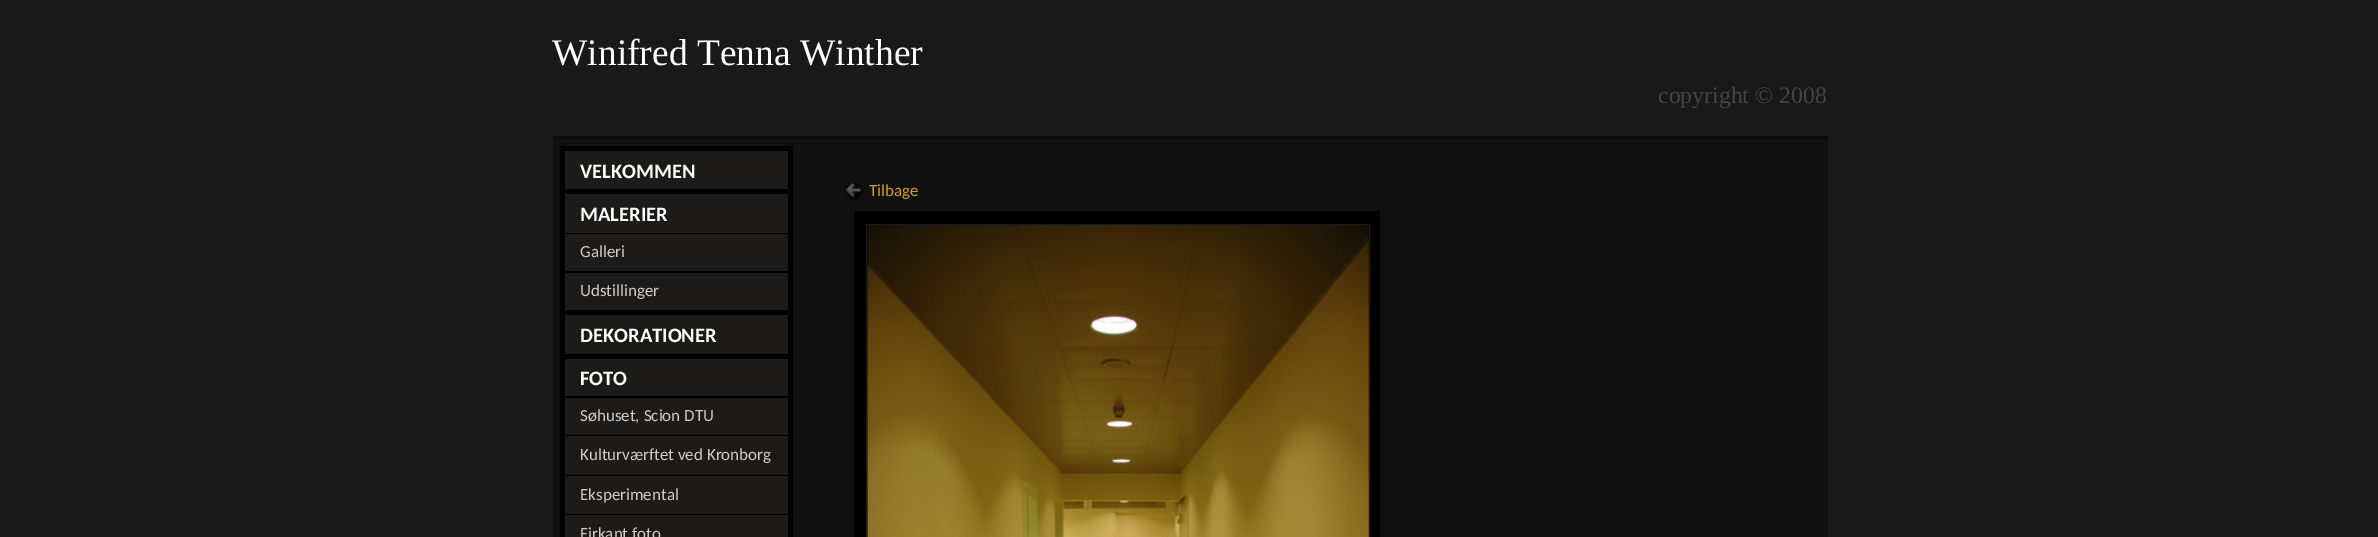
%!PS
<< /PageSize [2378 537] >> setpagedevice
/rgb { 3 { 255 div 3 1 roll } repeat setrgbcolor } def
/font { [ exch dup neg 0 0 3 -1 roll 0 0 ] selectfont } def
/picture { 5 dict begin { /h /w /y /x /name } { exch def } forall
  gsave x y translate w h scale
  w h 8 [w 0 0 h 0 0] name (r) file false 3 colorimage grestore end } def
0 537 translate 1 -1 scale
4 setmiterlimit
25 25 25 rgb
0 0 2378 537 rectfill
[
  [553 136 1275 3 10 10 10]
  [553 139 1275 398 16 16 16]
  [560 146 233 391 0 0 0]
  [565 151 223 38 29 27 25]
  [565 194 223 39 29 27 25]
  [565 234 223 37 29 27 25]
  [565 273 223 37 29 27 25]
  [565 315 223 39 29 27 25]
  [565 359 223 37 29 27 25]
  [565 398 223 37 29 27 25]
  [565 436 223 39 29 27 25]
  [565 476 223 38 29 27 25]
  [565 515 223 22 29 27 25]
] { aload pop rgb rectfill } forall
(img/1.rgb) 844 182 20 18 picture
0 0 0 rgb
854 211 526 326 rectfill
29 27 25 rgb
866.5 224.5 503 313 rectstroke
(img/2.rgb) 867 225 502 312 picture
/LiberationSerif-Regular 37.5 font
255 255 255 rgb
552 65 moveto (Winifred Tenna Winther) show
/LiberationSerif-Regular 23.75 font
68 68 68 rgb
1658 103 moveto (copyright © 2008) show
/Carlito-Bold 20.5 font
255 255 255 rgb
580 178 moveto (VELKOMMEN) show
580 221 moveto (MALERIER) show
/Carlito-Regular 17 font
204 204 204 rgb
580 257 moveto (Galleri) show
580 296 moveto (Udstillinger) show
/Carlito-Bold 20.5 font
255 255 255 rgb
580 342 moveto (DEKORATIONER) show
580 385 moveto (FOTO) show
/Carlito-Regular 17 font
204 204 204 rgb
[
  [(Søhuset, Scion DTU) 580 421]
  [(Kulturværftet ved Kronborg) 580 460]
  [(Eksperimental) 580 500]
  [(Firkant foto) 580 539]
] { aload pop moveto show } forall
218 160 0 rgb
869 196 moveto (Tilbage) show
showpage
